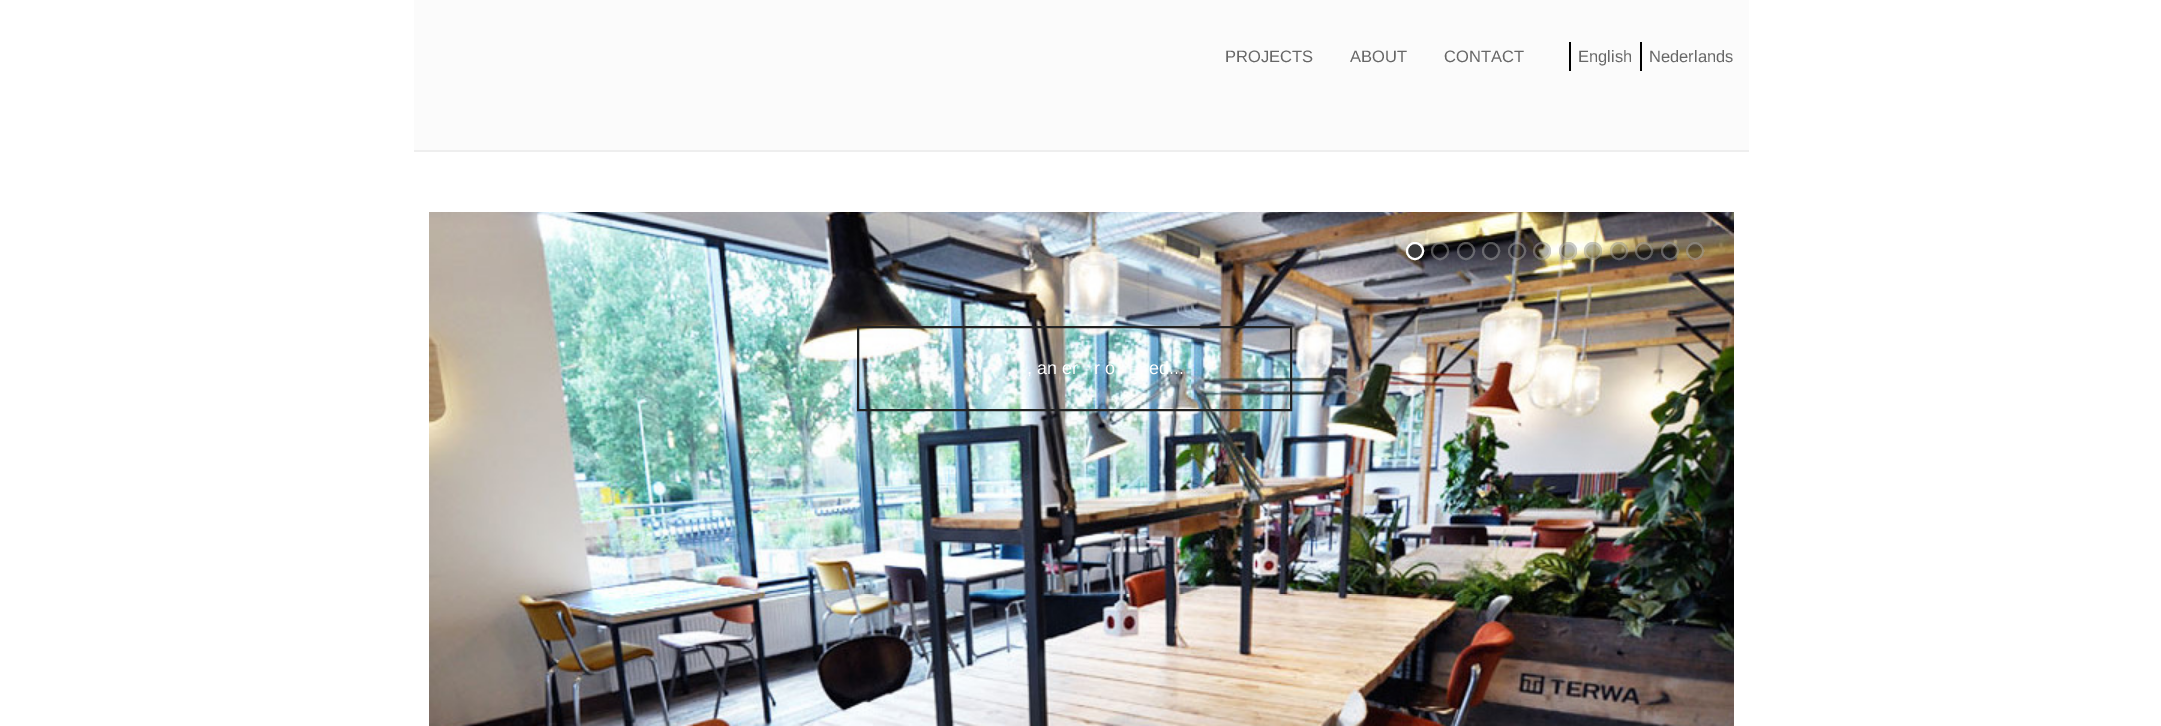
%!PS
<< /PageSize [2161 726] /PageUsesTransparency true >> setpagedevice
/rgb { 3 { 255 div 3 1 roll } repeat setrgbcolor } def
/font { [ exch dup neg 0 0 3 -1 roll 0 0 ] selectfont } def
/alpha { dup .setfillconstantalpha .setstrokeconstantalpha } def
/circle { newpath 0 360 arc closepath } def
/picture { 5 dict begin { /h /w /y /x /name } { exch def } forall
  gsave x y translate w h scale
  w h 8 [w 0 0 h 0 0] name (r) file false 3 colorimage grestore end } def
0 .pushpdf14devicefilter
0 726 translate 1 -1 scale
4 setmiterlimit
255 255 255 rgb
0 0 2161 726 rectfill
[
  [414 0 1335 150 251 251 251]
  [414 150 1335 2 238 238 238]
  [1569 42 2 29 0 0 0]
  [1640 42 2 29 0 0 0]
] { aload pop rgb rectfill } forall
(img/1.rgb) 429 212 1305 514 picture
59 59 59 rgb
1415 251 8 circle gsave fill grestore
255 255 255 rgb
2 setlinewidth
stroke
0.3 alpha
0 0 0 rgb
1440 251 9 circle fill
255 255 255 rgb
1440 251 8 circle stroke
0 0 0 rgb
1466 251 9 circle fill
255 255 255 rgb
1466 251 8 circle stroke
0 0 0 rgb
1491 251 9 circle fill
255 255 255 rgb
1491 251 8 circle stroke
0 0 0 rgb
1517 251 9 circle fill
255 255 255 rgb
1517 251 8 circle stroke
0 0 0 rgb
1542 251 9 circle fill
255 255 255 rgb
1542 251 8 circle stroke
0 0 0 rgb
1568 251 9 circle fill
255 255 255 rgb
1568 251 8 circle stroke
0 0 0 rgb
1593 251 9 circle fill
255 255 255 rgb
1593 251 8 circle stroke
0 0 0 rgb
1619 251 9 circle fill
255 255 255 rgb
1619 251 8 circle stroke
0 0 0 rgb
1644 251 9 circle fill
255 255 255 rgb
1644 251 8 circle stroke
0 0 0 rgb
1670 251 9 circle fill
255 255 255 rgb
1670 251 8 circle stroke
0 0 0 rgb
1695 251 9 circle fill
255 255 255 rgb
1695 251 8 circle stroke
1 alpha
34 34 34 rgb
858 327 433 83 rectstroke
/LiberationSans-Regular 16.5 font
102 102 102 rgb
[
  [(PROJECTS) 1225 62]
  [(ABOUT) 1350 62]
  [(CONTACT) 1444 62]
  [(English) 1578 62]
  [(Nederlands) 1649 62]
] { aload pop moveto show } forall
/LiberationSans-Regular 18 font
255 255 255 rgb
[
  [(, an er) 1027 374]
  [(r o) 1094 374]
  [(ed...) 1149 374]
] { aload pop moveto show } forall
.poppdf14devicefilter showpage
